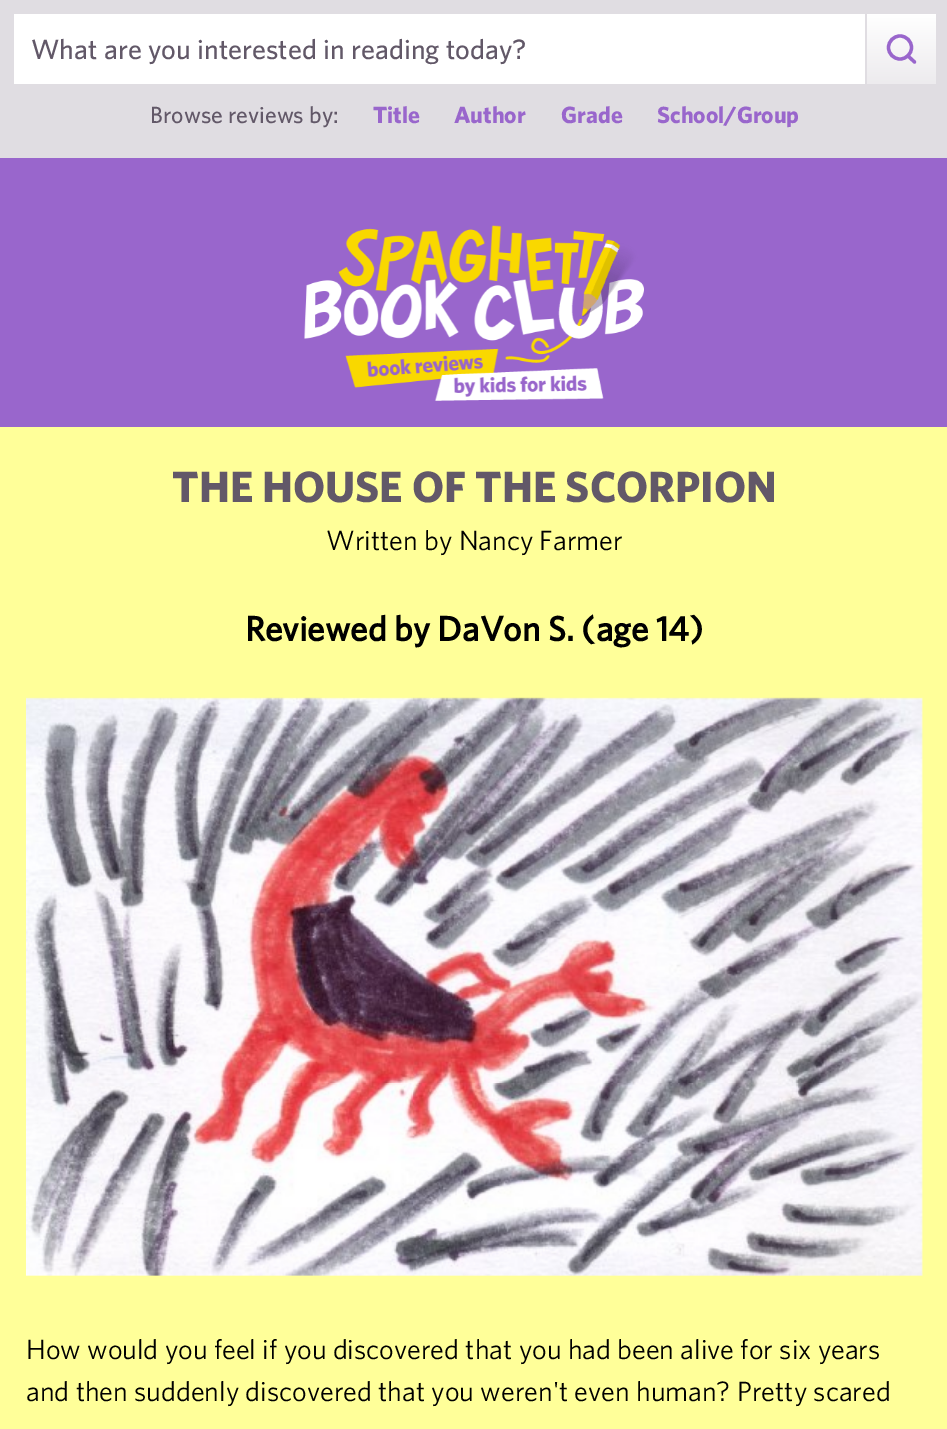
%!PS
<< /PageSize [947 1429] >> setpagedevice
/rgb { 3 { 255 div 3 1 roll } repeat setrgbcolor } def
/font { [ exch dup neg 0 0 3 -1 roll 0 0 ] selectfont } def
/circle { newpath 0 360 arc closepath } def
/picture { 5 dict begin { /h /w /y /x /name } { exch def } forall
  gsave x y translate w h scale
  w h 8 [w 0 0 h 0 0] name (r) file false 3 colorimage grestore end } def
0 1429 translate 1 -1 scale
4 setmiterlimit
153 102 204 rgb
0 0 947 1429 rectfill
224 221 226 rgb
0 0 947 158 rectfill
255 255 255 rgb
14 14 851 70 rectfill
gsave 867 14 moveto 936 14 lineto 936 84 lineto 867 84 lineto closepath clip newpath
<< /ShadingType 2 /ColorSpace /DeviceRGB /Coords [867 84 867 -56] /Extend [true true] /Function << /FunctionType 3 /Domain [0 1] /Functions [<< /FunctionType 2 /Domain [0 1] /C0 [0.929 0.922 0.933] /C1 [1 1 1] /N 1 >> << /FunctionType 2 /Domain [0 1] /C0 [1 1 1] /C1 [1 1 1] /N 1 >>] /Bounds [0.5] /Encode [0 1 0 1] >> >> shfill grestore
153 102 204 rgb
3.3 setlinewidth
900 47.5 11.5 circle stroke
1 setlinecap
1 setlinejoin
914.5 62 moveto 908 56 lineto stroke
(img/1.rgb) 304 225 340 176 picture
255 255 153 rgb
0 427 947 1002 rectfill
(img/2.rgb) 26 697 897 579 picture
/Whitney-Medium 28 font
98 88 104 rgb
31 59 moveto (What are you interested in reading today?) show
/Whitney-Medium 23.5 font
150 123 moveto (Browse reviews by:) show
/Whitney-Bold 23.5 font
153 102 204 rgb
[
  [(Title) 373 123]
  [(Author) 454 123]
  [(Grade) 561 123]
  [(School/Group) 657 123]
] { aload pop moveto show } forall
/Whitney-Bold 43.75 font
98 88 104 rgb
172 502 moveto (THE HOUSE OF THE SCORPION) show
/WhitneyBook-Regular 28 font
0 0 0 rgb
326 550 moveto (Written by Nancy Farmer) show
/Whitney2-Bold 35 font
245 641 moveto (Reviewed by DaVon S. \(age 14\)) show
/WhitneyBook-Regular 28 font
26 1359 moveto (How would you feel if you discovered that you had been alive for six years) show
26 1401 moveto (and then suddenly discovered that you weren't even human? Pretty scared) show
showpage
